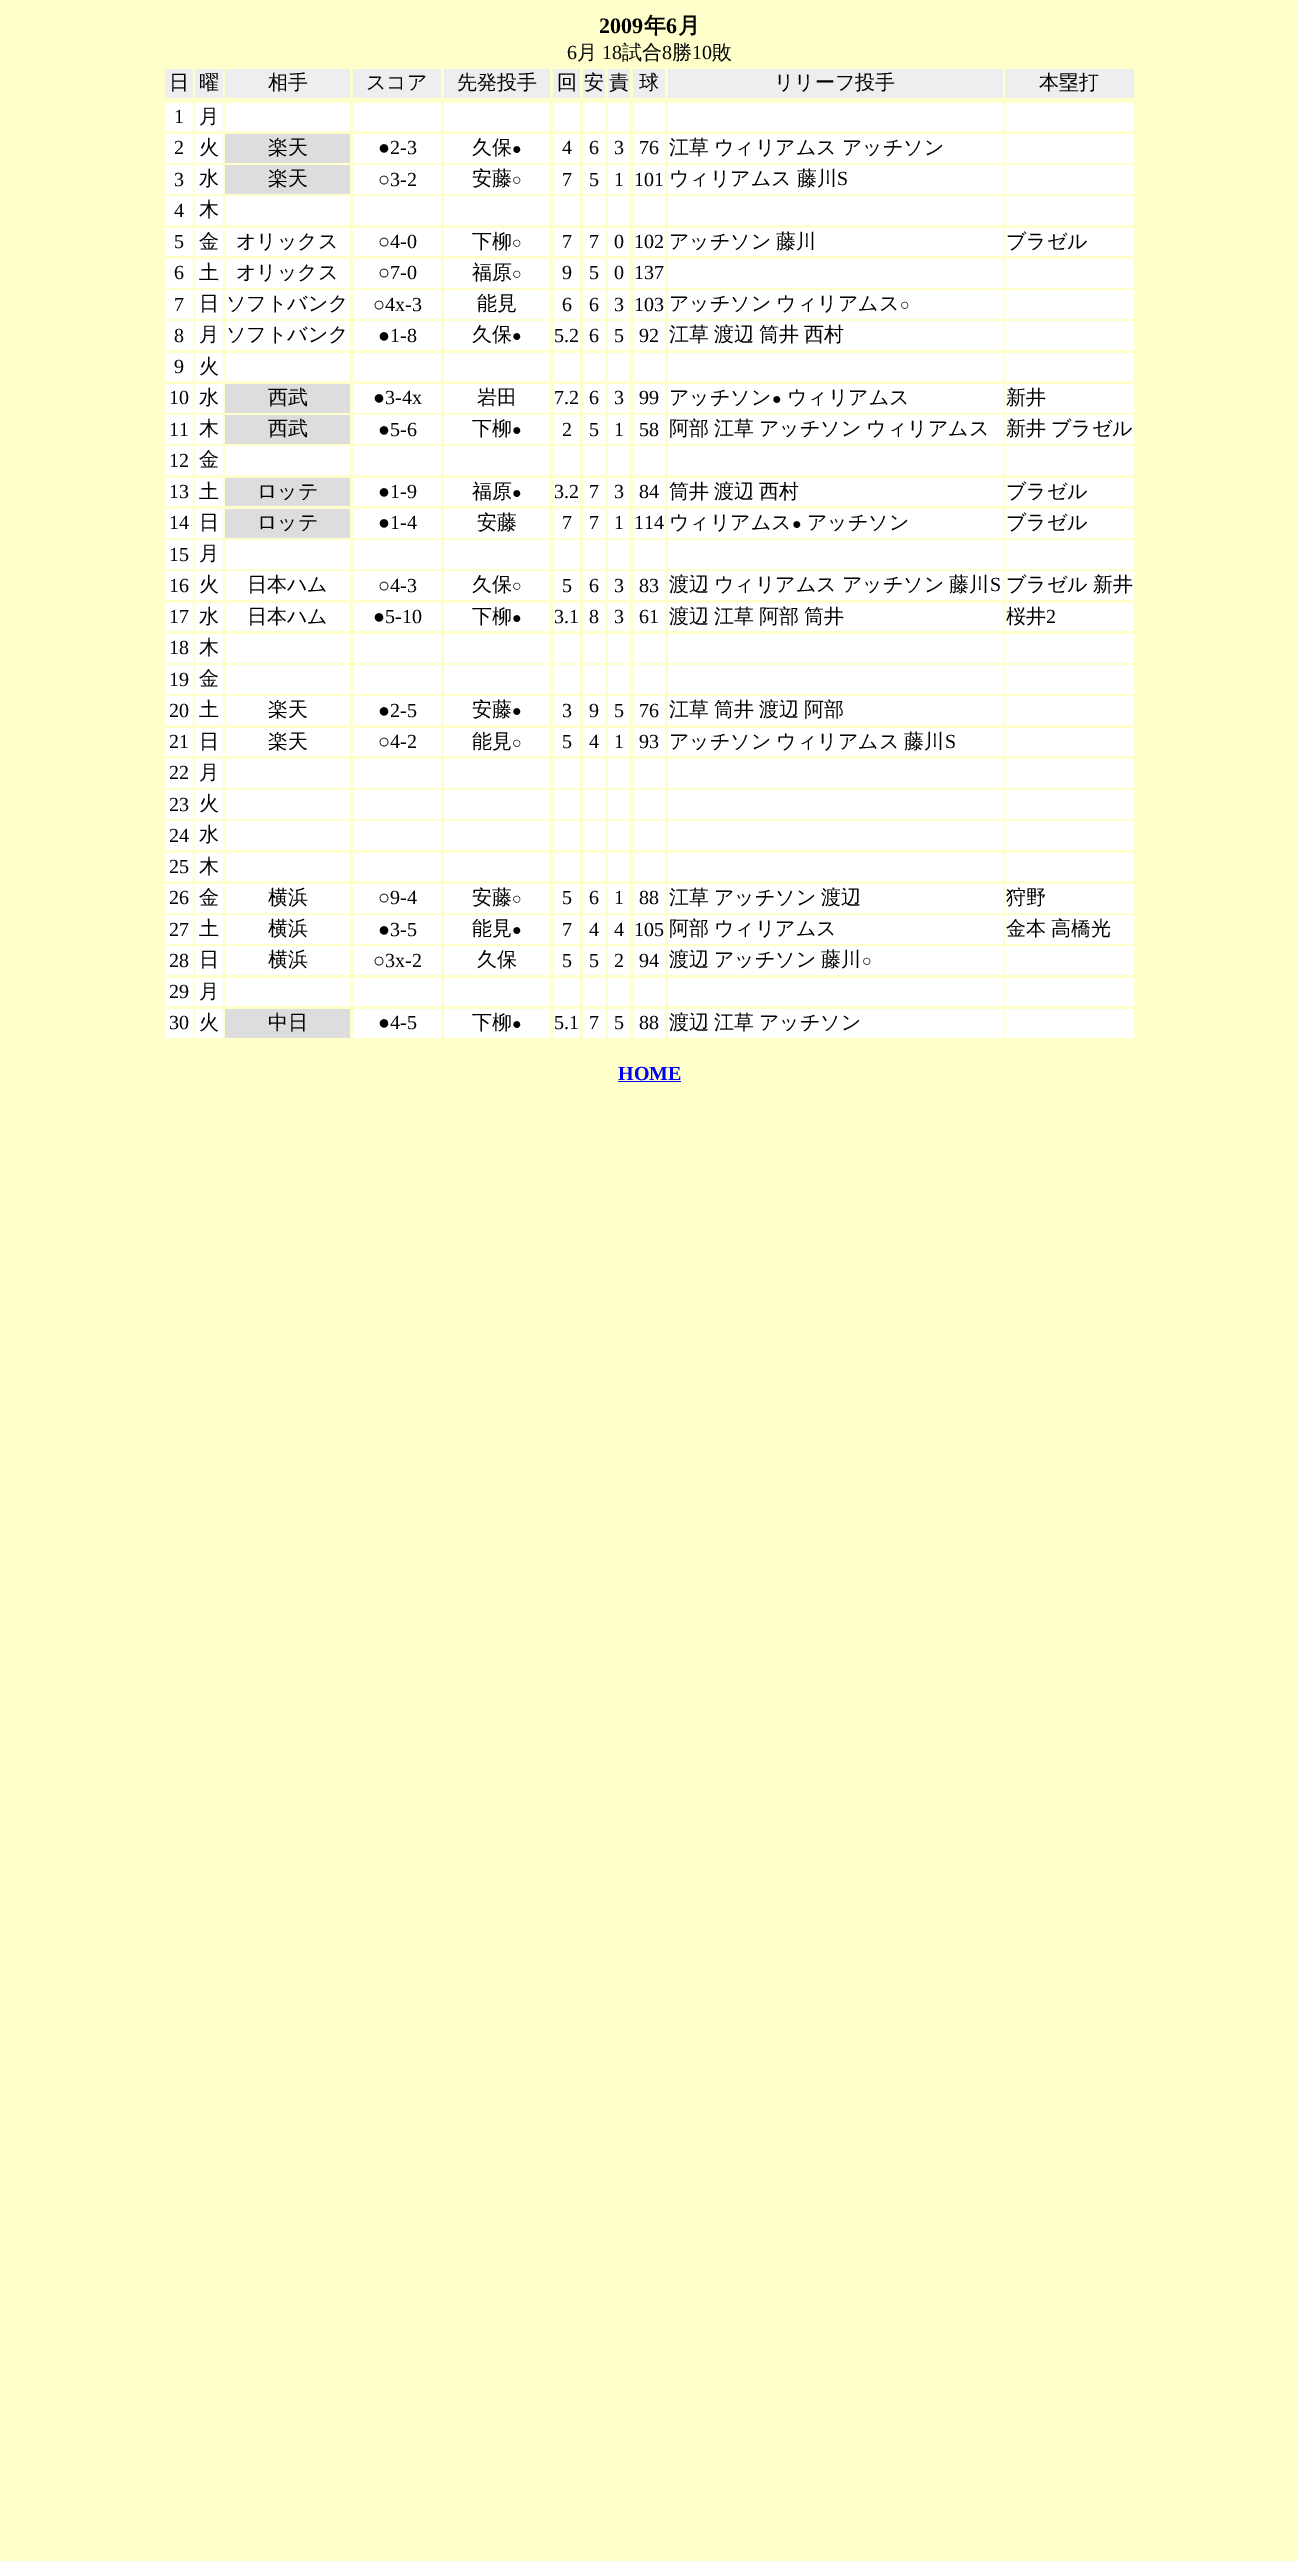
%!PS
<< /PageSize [1298 2561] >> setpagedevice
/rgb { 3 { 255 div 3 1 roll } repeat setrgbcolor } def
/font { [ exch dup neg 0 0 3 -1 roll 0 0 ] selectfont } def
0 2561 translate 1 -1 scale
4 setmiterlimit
255 255 204 rgb
0 0 1298 2561 rectfill
[
  [165 69 28 29 238 238 238]
  [195 69 28 29 238 238 238]
  [225 69 125 29 238 238 238]
  [353 69 88 29 238 238 238]
  [444 69 106 29 238 238 238]
  [553 69 27 29 238 238 238]
  [583 69 22 29 238 238 238]
  [608 69 22 29 238 238 238]
  [633 69 32 29 238 238 238]
  [668 69 335 29 238 238 238]
  [1005 69 129 29 238 238 238]
  [165 103 28 28 255 255 255]
  [195 103 28 28 255 255 255]
  [225 103 125 28 255 255 255]
  [353 103 88 28 255 255 255]
  [444 103 106 28 255 255 255]
  [553 103 27 28 255 255 255]
  [583 103 22 28 255 255 255]
  [608 103 22 28 255 255 255]
  [633 103 32 28 255 255 255]
  [668 103 335 28 255 255 255]
  [1005 103 129 28 255 255 255]
  [165 134 28 29 255 255 255]
  [195 134 28 29 255 255 255]
  [225 134 125 29 221 221 221]
  [353 134 88 29 255 255 255]
  [444 134 106 29 255 255 255]
  [553 134 27 29 255 255 255]
  [583 134 22 29 255 255 255]
  [608 134 22 29 255 255 255]
  [633 134 32 29 255 255 255]
  [668 134 335 29 255 255 255]
  [1005 134 129 29 255 255 255]
  [165 165 28 29 255 255 255]
  [195 165 28 29 255 255 255]
  [225 165 125 29 221 221 221]
  [353 165 88 29 255 255 255]
  [444 165 106 29 255 255 255]
  [553 165 27 29 255 255 255]
  [583 165 22 29 255 255 255]
  [608 165 22 29 255 255 255]
  [633 165 32 29 255 255 255]
  [668 165 335 29 255 255 255]
  [1005 165 129 29 255 255 255]
  [165 196 28 29 255 255 255]
  [195 196 28 29 255 255 255]
  [225 196 125 29 255 255 255]
  [353 196 88 29 255 255 255]
  [444 196 106 29 255 255 255]
  [553 196 27 29 255 255 255]
  [583 196 22 29 255 255 255]
  [608 196 22 29 255 255 255]
  [633 196 32 29 255 255 255]
  [668 196 335 29 255 255 255]
  [1005 196 129 29 255 255 255]
  [165 228 28 28 255 255 255]
  [195 228 28 28 255 255 255]
  [225 228 125 28 255 255 255]
  [353 228 88 28 255 255 255]
  [444 228 106 28 255 255 255]
  [553 228 27 28 255 255 255]
  [583 228 22 28 255 255 255]
  [608 228 22 28 255 255 255]
  [633 228 32 28 255 255 255]
  [668 228 335 28 255 255 255]
  [1005 228 129 28 255 255 255]
  [165 259 28 29 255 255 255]
  [195 259 28 29 255 255 255]
  [225 259 125 29 255 255 255]
  [353 259 88 29 255 255 255]
  [444 259 106 29 255 255 255]
  [553 259 27 29 255 255 255]
  [583 259 22 29 255 255 255]
  [608 259 22 29 255 255 255]
  [633 259 32 29 255 255 255]
  [668 259 335 29 255 255 255]
  [1005 259 129 29 255 255 255]
  [165 290 28 29 255 255 255]
  [195 290 28 29 255 255 255]
  [225 290 125 29 255 255 255]
  [353 290 88 29 255 255 255]
  [444 290 106 29 255 255 255]
  [553 290 27 29 255 255 255]
  [583 290 22 29 255 255 255]
  [608 290 22 29 255 255 255]
  [633 290 32 29 255 255 255]
  [668 290 335 29 255 255 255]
  [1005 290 129 29 255 255 255]
  [165 321 28 29 255 255 255]
  [195 321 28 29 255 255 255]
  [225 321 125 29 255 255 255]
  [353 321 88 29 255 255 255]
  [444 321 106 29 255 255 255]
  [553 321 27 29 255 255 255]
  [583 321 22 29 255 255 255]
  [608 321 22 29 255 255 255]
  [633 321 32 29 255 255 255]
  [668 321 335 29 255 255 255]
  [1005 321 129 29 255 255 255]
  [165 353 28 28 255 255 255]
  [195 353 28 28 255 255 255]
  [225 353 125 28 255 255 255]
  [353 353 88 28 255 255 255]
  [444 353 106 28 255 255 255]
  [553 353 27 28 255 255 255]
  [583 353 22 28 255 255 255]
  [608 353 22 28 255 255 255]
  [633 353 32 28 255 255 255]
  [668 353 335 28 255 255 255]
  [1005 353 129 28 255 255 255]
  [165 384 28 29 255 255 255]
  [195 384 28 29 255 255 255]
  [225 384 125 29 221 221 221]
  [353 384 88 29 255 255 255]
  [444 384 106 29 255 255 255]
  [553 384 27 29 255 255 255]
  [583 384 22 29 255 255 255]
  [608 384 22 29 255 255 255]
  [633 384 32 29 255 255 255]
  [668 384 335 29 255 255 255]
  [1005 384 129 29 255 255 255]
  [165 415 28 29 255 255 255]
  [195 415 28 29 255 255 255]
  [225 415 125 29 221 221 221]
  [353 415 88 29 255 255 255]
  [444 415 106 29 255 255 255]
  [553 415 27 29 255 255 255]
  [583 415 22 29 255 255 255]
  [608 415 22 29 255 255 255]
  [633 415 32 29 255 255 255]
  [668 415 335 29 255 255 255]
  [1005 415 129 29 255 255 255]
  [165 446 28 29 255 255 255]
  [195 446 28 29 255 255 255]
  [225 446 125 29 255 255 255]
  [353 446 88 29 255 255 255]
  [444 446 106 29 255 255 255]
  [553 446 27 29 255 255 255]
  [583 446 22 29 255 255 255]
  [608 446 22 29 255 255 255]
  [633 446 32 29 255 255 255]
  [668 446 335 29 255 255 255]
  [1005 446 129 29 255 255 255]
  [165 478 28 28 255 255 255]
  [195 478 28 28 255 255 255]
  [225 478 125 28 221 221 221]
  [353 478 88 28 255 255 255]
  [444 478 106 28 255 255 255]
  [553 478 27 28 255 255 255]
  [583 478 22 28 255 255 255]
  [608 478 22 28 255 255 255]
  [633 478 32 28 255 255 255]
  [668 478 335 28 255 255 255]
  [1005 478 129 28 255 255 255]
  [165 509 28 29 255 255 255]
  [195 509 28 29 255 255 255]
  [225 509 125 29 221 221 221]
  [353 509 88 29 255 255 255]
  [444 509 106 29 255 255 255]
  [553 509 27 29 255 255 255]
  [583 509 22 29 255 255 255]
  [608 509 22 29 255 255 255]
  [633 509 32 29 255 255 255]
  [668 509 335 29 255 255 255]
  [1005 509 129 29 255 255 255]
  [165 540 28 29 255 255 255]
  [195 540 28 29 255 255 255]
  [225 540 125 29 255 255 255]
  [353 540 88 29 255 255 255]
  [444 540 106 29 255 255 255]
  [553 540 27 29 255 255 255]
  [583 540 22 29 255 255 255]
  [608 540 22 29 255 255 255]
  [633 540 32 29 255 255 255]
  [668 540 335 29 255 255 255]
  [1005 540 129 29 255 255 255]
  [165 571 28 29 255 255 255]
  [195 571 28 29 255 255 255]
  [225 571 125 29 255 255 255]
  [353 571 88 29 255 255 255]
  [444 571 106 29 255 255 255]
  [553 571 27 29 255 255 255]
  [583 571 22 29 255 255 255]
  [608 571 22 29 255 255 255]
  [633 571 32 29 255 255 255]
  [668 571 335 29 255 255 255]
  [1005 571 129 29 255 255 255]
  [165 603 28 28 255 255 255]
  [195 603 28 28 255 255 255]
  [225 603 125 28 255 255 255]
  [353 603 88 28 255 255 255]
  [444 603 106 28 255 255 255]
  [553 603 27 28 255 255 255]
  [583 603 22 28 255 255 255]
  [608 603 22 28 255 255 255]
  [633 603 32 28 255 255 255]
  [668 603 335 28 255 255 255]
  [1005 603 129 28 255 255 255]
  [165 634 28 29 255 255 255]
  [195 634 28 29 255 255 255]
  [225 634 125 29 255 255 255]
  [353 634 88 29 255 255 255]
  [444 634 106 29 255 255 255]
  [553 634 27 29 255 255 255]
  [583 634 22 29 255 255 255]
  [608 634 22 29 255 255 255]
  [633 634 32 29 255 255 255]
  [668 634 335 29 255 255 255]
  [1005 634 129 29 255 255 255]
  [165 665 28 29 255 255 255]
  [195 665 28 29 255 255 255]
  [225 665 125 29 255 255 255]
  [353 665 88 29 255 255 255]
  [444 665 106 29 255 255 255]
  [553 665 27 29 255 255 255]
  [583 665 22 29 255 255 255]
  [608 665 22 29 255 255 255]
  [633 665 32 29 255 255 255]
  [668 665 335 29 255 255 255]
  [1005 665 129 29 255 255 255]
  [165 696 28 29 255 255 255]
  [195 696 28 29 255 255 255]
  [225 696 125 29 255 255 255]
  [353 696 88 29 255 255 255]
  [444 696 106 29 255 255 255]
  [553 696 27 29 255 255 255]
  [583 696 22 29 255 255 255]
  [608 696 22 29 255 255 255]
  [633 696 32 29 255 255 255]
  [668 696 335 29 255 255 255]
  [1005 696 129 29 255 255 255]
  [165 728 28 28 255 255 255]
  [195 728 28 28 255 255 255]
  [225 728 125 28 255 255 255]
  [353 728 88 28 255 255 255]
  [444 728 106 28 255 255 255]
  [553 728 27 28 255 255 255]
  [583 728 22 28 255 255 255]
  [608 728 22 28 255 255 255]
  [633 728 32 28 255 255 255]
  [668 728 335 28 255 255 255]
  [1005 728 129 28 255 255 255]
  [165 759 28 29 255 255 255]
  [195 759 28 29 255 255 255]
  [225 759 125 29 255 255 255]
  [353 759 88 29 255 255 255]
  [444 759 106 29 255 255 255]
  [553 759 27 29 255 255 255]
  [583 759 22 29 255 255 255]
  [608 759 22 29 255 255 255]
  [633 759 32 29 255 255 255]
  [668 759 335 29 255 255 255]
  [1005 759 129 29 255 255 255]
  [165 790 28 29 255 255 255]
  [195 790 28 29 255 255 255]
  [225 790 125 29 255 255 255]
  [353 790 88 29 255 255 255]
  [444 790 106 29 255 255 255]
  [553 790 27 29 255 255 255]
  [583 790 22 29 255 255 255]
  [608 790 22 29 255 255 255]
  [633 790 32 29 255 255 255]
  [668 790 335 29 255 255 255]
  [1005 790 129 29 255 255 255]
  [165 821 28 29 255 255 255]
  [195 821 28 29 255 255 255]
  [225 821 125 29 255 255 255]
  [353 821 88 29 255 255 255]
  [444 821 106 29 255 255 255]
  [553 821 27 29 255 255 255]
  [583 821 22 29 255 255 255]
  [608 821 22 29 255 255 255]
  [633 821 32 29 255 255 255]
  [668 821 335 29 255 255 255]
  [1005 821 129 29 255 255 255]
  [165 853 28 28 255 255 255]
  [195 853 28 28 255 255 255]
  [225 853 125 28 255 255 255]
  [353 853 88 28 255 255 255]
  [444 853 106 28 255 255 255]
  [553 853 27 28 255 255 255]
  [583 853 22 28 255 255 255]
  [608 853 22 28 255 255 255]
  [633 853 32 28 255 255 255]
  [668 853 335 28 255 255 255]
  [1005 853 129 28 255 255 255]
  [165 884 28 29 255 255 255]
  [195 884 28 29 255 255 255]
  [225 884 125 29 255 255 255]
  [353 884 88 29 255 255 255]
  [444 884 106 29 255 255 255]
  [553 884 27 29 255 255 255]
  [583 884 22 29 255 255 255]
  [608 884 22 29 255 255 255]
  [633 884 32 29 255 255 255]
  [668 884 335 29 255 255 255]
  [1005 884 129 29 255 255 255]
  [165 915 28 29 255 255 255]
  [195 915 28 29 255 255 255]
  [225 915 125 29 255 255 255]
  [353 915 88 29 255 255 255]
  [444 915 106 29 255 255 255]
  [553 915 27 29 255 255 255]
  [583 915 22 29 255 255 255]
  [608 915 22 29 255 255 255]
  [633 915 32 29 255 255 255]
  [668 915 335 29 255 255 255]
  [1005 915 129 29 255 255 255]
  [165 946 28 29 255 255 255]
  [195 946 28 29 255 255 255]
  [225 946 125 29 255 255 255]
  [353 946 88 29 255 255 255]
  [444 946 106 29 255 255 255]
  [553 946 27 29 255 255 255]
  [583 946 22 29 255 255 255]
  [608 946 22 29 255 255 255]
  [633 946 32 29 255 255 255]
  [668 946 335 29 255 255 255]
  [1005 946 129 29 255 255 255]
  [165 978 28 28 255 255 255]
  [195 978 28 28 255 255 255]
  [225 978 125 28 255 255 255]
  [353 978 88 28 255 255 255]
  [444 978 106 28 255 255 255]
  [553 978 27 28 255 255 255]
  [583 978 22 28 255 255 255]
  [608 978 22 28 255 255 255]
  [633 978 32 28 255 255 255]
  [668 978 335 28 255 255 255]
  [1005 978 129 28 255 255 255]
  [165 1009 28 29 255 255 255]
  [195 1009 28 29 255 255 255]
  [225 1009 125 29 221 221 221]
  [353 1009 88 29 255 255 255]
  [444 1009 106 29 255 255 255]
  [553 1009 27 29 255 255 255]
  [583 1009 22 29 255 255 255]
  [608 1009 22 29 255 255 255]
  [633 1009 32 29 255 255 255]
  [668 1009 335 29 255 255 255]
  [1005 1009 129 29 255 255 255]
  [618 1081 63 1 0 0 238]
] { aload pop rgb rectfill } forall
/LiberationSerif-Bold 22 font
0 0 0 rgb
599 33 moveto (2009) show
/WenQuanYiZenHei-Bold 22 font
644 33 moveto (年) show
/LiberationSerif-Bold 22 font
666 33 moveto (6) show
/WenQuanYiZenHei-Bold 22 font
678 33 moveto (月) show
/LiberationSerif-Regular 20 font
567 59 moveto (6) show
/WenQuanYiZenHei-Medium 20 font
577 59 moveto (月) show
/LiberationSerif-Regular 20 font
602 59 moveto (18) show
/WenQuanYiZenHei-Medium 20 font
622 59 moveto (試合) show
/LiberationSerif-Regular 20 font
662 59 moveto (8) show
/WenQuanYiZenHei-Medium 20 font
672 59 moveto (勝) show
/LiberationSerif-Regular 20 font
692 59 moveto (10) show
/WenQuanYiZenHei-Medium 20 font
[
  [(敗) 712 59]
  [(日) 169 89]
  [(曜) 199 89]
  [(相手) 268 89]
  [(スコア) 366 89]
  [(先発投手) 457 89]
  [(回) 557 89]
  [(安) 584 89]
  [(責) 609 89]
  [(球) 639 89]
  [(リリーフ投手) 774 89]
  [(本塁打) 1039 89]
] { aload pop moveto show } forall
/LiberationSerif-Regular 20 font
174 123 moveto (1) show
/WenQuanYiZenHei-Medium 20 font
199 123 moveto (月) show
/LiberationSerif-Regular 20 font
174 154 moveto (2) show
/WenQuanYiZenHei-Medium 20 font
199 154 moveto (火) show
268 154 moveto (楽天) show
/LiberationSerif-Regular 20 font
378 154 moveto (●2-3) show
/WenQuanYiZenHei-Medium 20 font
472 154 moveto (久保) show
/LiberationSerif-Regular 16 font
512 154 moveto (●) show
/LiberationSerif-Regular 20 font
[
  [(4) 562 154]
  [(6) 589 154]
  [(3) 614 154]
  [(76) 639 154]
] { aload pop moveto show } forall
/WenQuanYiZenHei-Medium 20 font
669 154 moveto -1 0 32 (江草 ウィリアムス アッチソン) widthshow
/LiberationSerif-Regular 20 font
174 186 moveto (3) show
/WenQuanYiZenHei-Medium 20 font
199 185 moveto (水) show
268 185 moveto (楽天) show
/LiberationSerif-Regular 20 font
378 186 moveto (○3-2) show
/WenQuanYiZenHei-Medium 20 font
472 185 moveto (安藤) show
/LiberationSerif-Regular 16 font
512 185 moveto (○) show
/LiberationSerif-Regular 20 font
[
  [(7) 562 186]
  [(5) 589 186]
  [(1) 614 186]
  [(101) 634 186]
] { aload pop moveto show } forall
/WenQuanYiZenHei-Medium 20 font
669 185 moveto -1 0 32 (ウィリアムス 藤川) widthshow
/LiberationSerif-Regular 20 font
837 185 moveto (S) show
174 217 moveto (4) show
/WenQuanYiZenHei-Medium 20 font
199 216 moveto (木) show
/LiberationSerif-Regular 20 font
174 248 moveto (5) show
/WenQuanYiZenHei-Medium 20 font
199 248 moveto (金) show
236 248 moveto (オリックス) show
/LiberationSerif-Regular 20 font
378 248 moveto (○4-0) show
/WenQuanYiZenHei-Medium 20 font
472 248 moveto (下柳) show
/LiberationSerif-Regular 16 font
512 248 moveto (○) show
/LiberationSerif-Regular 20 font
[
  [(7) 562 248]
  [(7) 589 248]
  [(0) 614 248]
  [(102) 634 248]
] { aload pop moveto show } forall
/WenQuanYiZenHei-Medium 20 font
669 248 moveto -1 0 32 (アッチソン 藤川) widthshow
1006 248 moveto (ブラゼル) show
/LiberationSerif-Regular 20 font
174 279 moveto (6) show
/WenQuanYiZenHei-Medium 20 font
199 279 moveto (土) show
236 279 moveto (オリックス) show
/LiberationSerif-Regular 20 font
378 279 moveto (○7-0) show
/WenQuanYiZenHei-Medium 20 font
472 279 moveto (福原) show
/LiberationSerif-Regular 16 font
512 279 moveto (○) show
/LiberationSerif-Regular 20 font
[
  [(9) 562 279]
  [(5) 589 279]
  [(0) 614 279]
  [(137) 634 279]
  [(7) 174 311]
] { aload pop moveto show } forall
/WenQuanYiZenHei-Medium 20 font
199 310 moveto (日) show
226 310 moveto (ソフトバンク) show
/LiberationSerif-Regular 20 font
373 311 moveto (○4x-3) show
/WenQuanYiZenHei-Medium 20 font
477 310 moveto (能見) show
/LiberationSerif-Regular 20 font
[
  [(6) 562 311]
  [(6) 589 311]
  [(3) 614 311]
  [(103) 634 311]
] { aload pop moveto show } forall
/WenQuanYiZenHei-Medium 20 font
669 310 moveto -1 0 32 (アッチソン ウィリアムス) widthshow
/LiberationSerif-Regular 16 font
900 310 moveto (○) show
/LiberationSerif-Regular 20 font
174 342 moveto (8) show
/WenQuanYiZenHei-Medium 20 font
199 341 moveto (月) show
226 341 moveto (ソフトバンク) show
/LiberationSerif-Regular 20 font
378 342 moveto (●1-8) show
/WenQuanYiZenHei-Medium 20 font
472 341 moveto (久保) show
/LiberationSerif-Regular 16 font
512 341 moveto (●) show
/LiberationSerif-Regular 20 font
[
  [(5.2) 554 342]
  [(6) 589 342]
  [(5) 614 342]
  [(92) 639 342]
] { aload pop moveto show } forall
/WenQuanYiZenHei-Medium 20 font
669 341 moveto -1 0 32 (江草 渡辺 筒井 西村) widthshow
/LiberationSerif-Regular 20 font
174 373 moveto (9) show
/WenQuanYiZenHei-Medium 20 font
199 373 moveto (火) show
/LiberationSerif-Regular 20 font
169 404 moveto (10) show
/WenQuanYiZenHei-Medium 20 font
199 404 moveto (水) show
268 404 moveto (西武) show
/LiberationSerif-Regular 20 font
373 404 moveto (●3-4x) show
/WenQuanYiZenHei-Medium 20 font
477 404 moveto (岩田) show
/LiberationSerif-Regular 20 font
[
  [(7.2) 554 404]
  [(6) 589 404]
  [(3) 614 404]
  [(99) 639 404]
] { aload pop moveto show } forall
/WenQuanYiZenHei-Medium 20 font
669 404 moveto (アッチソン) show
/LiberationSerif-Regular 16 font
772 404 moveto (●) show
/WenQuanYiZenHei-Medium 20 font
787 404 moveto (ウィリアムス) show
1006 404 moveto (新井) show
/LiberationSerif-Regular 20 font
169 436 moveto (11) show
/WenQuanYiZenHei-Medium 20 font
199 435 moveto (木) show
268 435 moveto (西武) show
/LiberationSerif-Regular 20 font
378 436 moveto (●5-6) show
/WenQuanYiZenHei-Medium 20 font
472 435 moveto (下柳) show
/LiberationSerif-Regular 16 font
512 435 moveto (●) show
/LiberationSerif-Regular 20 font
[
  [(2) 562 436]
  [(5) 589 436]
  [(1) 614 436]
  [(58) 639 436]
] { aload pop moveto show } forall
/WenQuanYiZenHei-Medium 20 font
669 435 moveto -1 0 32 (阿部 江草 アッチソン ウィリアムス) widthshow
1006 435 moveto -1 0 32 (新井 ブラゼル) widthshow
/LiberationSerif-Regular 20 font
169 467 moveto (12) show
/WenQuanYiZenHei-Medium 20 font
199 466 moveto (金) show
/LiberationSerif-Regular 20 font
169 498 moveto (13) show
/WenQuanYiZenHei-Medium 20 font
199 498 moveto (土) show
257 498 moveto (ロッテ) show
/LiberationSerif-Regular 20 font
378 498 moveto (●1-9) show
/WenQuanYiZenHei-Medium 20 font
472 498 moveto (福原) show
/LiberationSerif-Regular 16 font
512 498 moveto (●) show
/LiberationSerif-Regular 20 font
[
  [(3.2) 554 498]
  [(7) 589 498]
  [(3) 614 498]
  [(84) 639 498]
] { aload pop moveto show } forall
/WenQuanYiZenHei-Medium 20 font
669 498 moveto -1 0 32 (筒井 渡辺 西村) widthshow
1006 498 moveto (ブラゼル) show
/LiberationSerif-Regular 20 font
169 529 moveto (14) show
/WenQuanYiZenHei-Medium 20 font
199 529 moveto (日) show
257 529 moveto (ロッテ) show
/LiberationSerif-Regular 20 font
378 529 moveto (●1-4) show
/WenQuanYiZenHei-Medium 20 font
477 529 moveto (安藤) show
/LiberationSerif-Regular 20 font
[
  [(7) 562 529]
  [(7) 589 529]
  [(1) 614 529]
  [(114) 634 529]
] { aload pop moveto show } forall
/WenQuanYiZenHei-Medium 20 font
669 529 moveto (ウィリアムス) show
/LiberationSerif-Regular 16 font
792 529 moveto (●) show
/WenQuanYiZenHei-Medium 20 font
807 529 moveto (アッチソン) show
1006 529 moveto (ブラゼル) show
/LiberationSerif-Regular 20 font
169 561 moveto (15) show
/WenQuanYiZenHei-Medium 20 font
199 560 moveto (月) show
/LiberationSerif-Regular 20 font
169 592 moveto (16) show
/WenQuanYiZenHei-Medium 20 font
199 591 moveto (火) show
247 591 moveto (日本ハム) show
/LiberationSerif-Regular 20 font
378 592 moveto (○4-3) show
/WenQuanYiZenHei-Medium 20 font
472 591 moveto (久保) show
/LiberationSerif-Regular 16 font
512 591 moveto (○) show
/LiberationSerif-Regular 20 font
[
  [(5) 562 592]
  [(6) 589 592]
  [(3) 614 592]
  [(83) 639 592]
] { aload pop moveto show } forall
/WenQuanYiZenHei-Medium 20 font
669 591 moveto -1 0 32 (渡辺 ウィリアムス アッチソン 藤川) widthshow
/LiberationSerif-Regular 20 font
990 591 moveto (S) show
/WenQuanYiZenHei-Medium 20 font
1006 591 moveto -1 0 32 (ブラゼル 新井) widthshow
/LiberationSerif-Regular 20 font
169 623 moveto (17) show
/WenQuanYiZenHei-Medium 20 font
199 623 moveto (水) show
247 623 moveto (日本ハム) show
/LiberationSerif-Regular 20 font
373 623 moveto (●5-10) show
/WenQuanYiZenHei-Medium 20 font
472 623 moveto (下柳) show
/LiberationSerif-Regular 16 font
512 623 moveto (●) show
/LiberationSerif-Regular 20 font
[
  [(3.1) 554 623]
  [(8) 589 623]
  [(3) 614 623]
  [(61) 639 623]
] { aload pop moveto show } forall
/WenQuanYiZenHei-Medium 20 font
669 623 moveto -1 0 32 (渡辺 江草 阿部 筒井) widthshow
1006 623 moveto (桜井) show
/LiberationSerif-Regular 20 font
1046 623 moveto (2) show
169 654 moveto (18) show
/WenQuanYiZenHei-Medium 20 font
199 654 moveto (木) show
/LiberationSerif-Regular 20 font
169 686 moveto (19) show
/WenQuanYiZenHei-Medium 20 font
199 685 moveto (金) show
/LiberationSerif-Regular 20 font
169 717 moveto (20) show
/WenQuanYiZenHei-Medium 20 font
199 716 moveto (土) show
268 716 moveto (楽天) show
/LiberationSerif-Regular 20 font
378 717 moveto (●2-5) show
/WenQuanYiZenHei-Medium 20 font
472 716 moveto (安藤) show
/LiberationSerif-Regular 16 font
512 716 moveto (●) show
/LiberationSerif-Regular 20 font
[
  [(3) 562 717]
  [(9) 589 717]
  [(5) 614 717]
  [(76) 639 717]
] { aload pop moveto show } forall
/WenQuanYiZenHei-Medium 20 font
669 716 moveto -1 0 32 (江草 筒井 渡辺 阿部) widthshow
/LiberationSerif-Regular 20 font
169 748 moveto (21) show
/WenQuanYiZenHei-Medium 20 font
199 748 moveto (日) show
268 748 moveto (楽天) show
/LiberationSerif-Regular 20 font
378 748 moveto (○4-2) show
/WenQuanYiZenHei-Medium 20 font
472 748 moveto (能見) show
/LiberationSerif-Regular 16 font
512 748 moveto (○) show
/LiberationSerif-Regular 20 font
[
  [(5) 562 748]
  [(4) 589 748]
  [(1) 614 748]
  [(93) 639 748]
] { aload pop moveto show } forall
/WenQuanYiZenHei-Medium 20 font
669 748 moveto -1 0 32 (アッチソン ウィリアムス 藤川) widthshow
/LiberationSerif-Regular 20 font
945 748 moveto (S) show
169 779 moveto (22) show
/WenQuanYiZenHei-Medium 20 font
199 779 moveto (月) show
/LiberationSerif-Regular 20 font
169 811 moveto (23) show
/WenQuanYiZenHei-Medium 20 font
199 810 moveto (火) show
/LiberationSerif-Regular 20 font
169 842 moveto (24) show
/WenQuanYiZenHei-Medium 20 font
199 841 moveto (水) show
/LiberationSerif-Regular 20 font
169 873 moveto (25) show
/WenQuanYiZenHei-Medium 20 font
199 873 moveto (木) show
/LiberationSerif-Regular 20 font
169 904 moveto (26) show
/WenQuanYiZenHei-Medium 20 font
199 904 moveto (金) show
268 904 moveto (横浜) show
/LiberationSerif-Regular 20 font
378 904 moveto (○9-4) show
/WenQuanYiZenHei-Medium 20 font
472 904 moveto (安藤) show
/LiberationSerif-Regular 16 font
512 904 moveto (○) show
/LiberationSerif-Regular 20 font
[
  [(5) 562 904]
  [(6) 589 904]
  [(1) 614 904]
  [(88) 639 904]
] { aload pop moveto show } forall
/WenQuanYiZenHei-Medium 20 font
669 904 moveto -1 0 32 (江草 アッチソン 渡辺) widthshow
1006 904 moveto (狩野) show
/LiberationSerif-Regular 20 font
169 936 moveto (27) show
/WenQuanYiZenHei-Medium 20 font
199 935 moveto (土) show
268 935 moveto (横浜) show
/LiberationSerif-Regular 20 font
378 936 moveto (●3-5) show
/WenQuanYiZenHei-Medium 20 font
472 935 moveto (能見) show
/LiberationSerif-Regular 16 font
512 935 moveto (●) show
/LiberationSerif-Regular 20 font
[
  [(7) 562 936]
  [(4) 589 936]
  [(4) 614 936]
  [(105) 634 936]
] { aload pop moveto show } forall
/WenQuanYiZenHei-Medium 20 font
669 935 moveto -1 0 32 (阿部 ウィリアムス) widthshow
1006 935 moveto -1 0 32 (金本 高橋光) widthshow
/LiberationSerif-Regular 20 font
169 967 moveto (28) show
/WenQuanYiZenHei-Medium 20 font
199 966 moveto (日) show
268 966 moveto (横浜) show
/LiberationSerif-Regular 20 font
373 967 moveto (○3x-2) show
/WenQuanYiZenHei-Medium 20 font
477 966 moveto (久保) show
/LiberationSerif-Regular 20 font
[
  [(5) 562 967]
  [(5) 589 967]
  [(2) 614 967]
  [(94) 639 967]
] { aload pop moveto show } forall
/WenQuanYiZenHei-Medium 20 font
669 966 moveto -1 0 32 (渡辺 アッチソン 藤川) widthshow
/LiberationSerif-Regular 16 font
862 966 moveto (○) show
/LiberationSerif-Regular 20 font
169 998 moveto (29) show
/WenQuanYiZenHei-Medium 20 font
199 998 moveto (月) show
/LiberationSerif-Regular 20 font
169 1029 moveto (30) show
/WenQuanYiZenHei-Medium 20 font
199 1029 moveto (火) show
268 1029 moveto (中日) show
/LiberationSerif-Regular 20 font
378 1029 moveto (●4-5) show
/WenQuanYiZenHei-Medium 20 font
472 1029 moveto (下柳) show
/LiberationSerif-Regular 16 font
512 1029 moveto (●) show
/LiberationSerif-Regular 20 font
[
  [(5.1) 554 1029]
  [(7) 589 1029]
  [(5) 614 1029]
  [(88) 639 1029]
] { aload pop moveto show } forall
/WenQuanYiZenHei-Medium 20 font
669 1029 moveto -1 0 32 (渡辺 江草 アッチソン) widthshow
/LiberationSerif-Bold 20 font
0 0 238 rgb
618 1080 moveto (HOME) show
showpage
